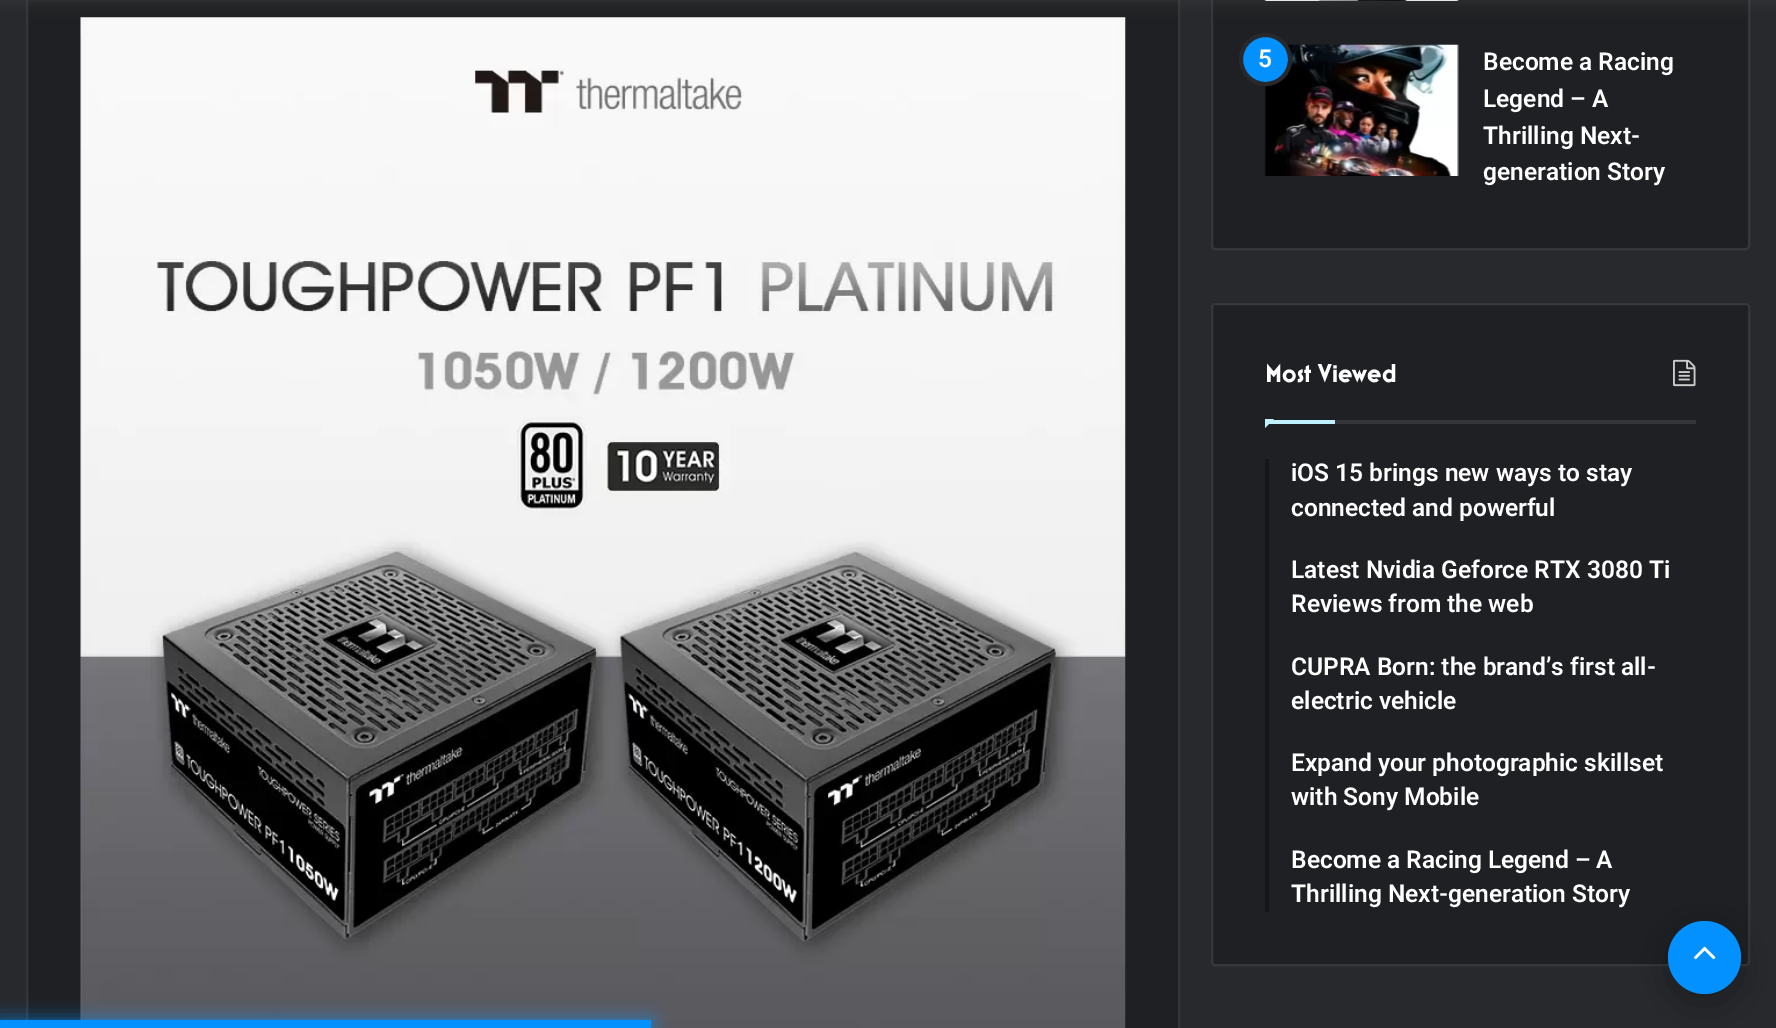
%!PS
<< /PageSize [1776 1028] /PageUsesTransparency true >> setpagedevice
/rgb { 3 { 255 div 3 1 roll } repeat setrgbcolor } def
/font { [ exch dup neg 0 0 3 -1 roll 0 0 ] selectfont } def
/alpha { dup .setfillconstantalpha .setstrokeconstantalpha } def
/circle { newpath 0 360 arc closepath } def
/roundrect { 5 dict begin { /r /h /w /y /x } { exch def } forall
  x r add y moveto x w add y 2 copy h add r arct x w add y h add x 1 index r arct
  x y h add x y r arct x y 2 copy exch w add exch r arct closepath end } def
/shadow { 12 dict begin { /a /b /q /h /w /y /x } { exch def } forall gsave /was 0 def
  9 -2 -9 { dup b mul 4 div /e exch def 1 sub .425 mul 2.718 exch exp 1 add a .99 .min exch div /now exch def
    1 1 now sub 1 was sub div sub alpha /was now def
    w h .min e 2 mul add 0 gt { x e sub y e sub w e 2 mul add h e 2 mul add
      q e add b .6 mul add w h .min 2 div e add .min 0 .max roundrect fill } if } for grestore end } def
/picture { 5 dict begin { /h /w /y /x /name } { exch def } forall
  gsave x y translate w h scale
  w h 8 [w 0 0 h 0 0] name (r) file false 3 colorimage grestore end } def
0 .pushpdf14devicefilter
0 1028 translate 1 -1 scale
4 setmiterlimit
39 41 45 rgb
0 0 1776 1028 rectfill
31 32 36 rgb
27 -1 moveto 1179 -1 lineto 1179 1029 lineto 27 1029 lineto closepath gsave fill grestore
53 54 58 rgb
2 setlinewidth
stroke
(img/1.rgb) 80 17 1046 1011 picture
31 32 36 rgb
1211 -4 539 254 4 roundrect fill
0.1 alpha
255 255 255 rgb
1212 -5 537 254 3 roundrect stroke
1 alpha
(img/2.rgb) 1264 0 195 1 picture
99 99 99 rgb
0 -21 1776 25 0 7 0.2 shadow
(img/3.rgb) 1264 44 195 132 picture
2 145 255 rgb
1265.5 59.5 24.5 circle gsave fill grestore
39 41 45 rgb
4 setlinewidth
stroke
31 32 36 rgb
1211 303 539 663 4 roundrect fill
0.1 alpha
255 255 255 rgb
2 setlinewidth
1212 304 537 661 3 roundrect stroke
1 alpha
53 54 58 rgb
1335 420 361 4 rectfill
(img/4.rgb) 1673 359 23 28 picture
191 241 255 rgb
1265 419 moveto 1274 419 lineto 1265 428 lineto closepath fill
1265 420 70 4 rectfill
22 22 25 rgb
1265 459 4 453 rectfill
0 0 0 rgb
1668 929 73 74 36.5 22 0.3 shadow
2 145 255 rgb
1704.5 957.5 36.5 circle fill
(img/5.rgb) 1693 946 23 14 picture
0 1020 651 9 0 9 0.7 shadow
0 1020 651 8 rectfill
/Roboto-SemiBold 24.5 font
255 255 255 rgb
[
  [(5) 1258 67]
  [(Become a Racing) 1483 70]
  [(Legend – A) 1483 107]
  [(Thrilling Next-) 1483 144]
  [(generation Story) 1483 180]
] { aload pop moveto show } forall
/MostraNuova-Bold 26.25 font
1265 382 moveto (Most Viewed) show
/Roboto-SemiBold 24.5 font
[
  [(iOS 15 brings new ways to stay) 1291 481]
  [(connected and powerful) 1291 516]
  [(Latest Nvidia Geforce RTX 3080 Ti) 1291 578]
  [(Reviews from the web) 1291 612]
  [(CUPRA Born: the brand’s first all-) 1291 675]
  [(electric vehicle) 1291 709]
  [(Expand your photographic skillset) 1291 771]
  [(with Sony Mobile) 1291 805]
  [(Become a Racing Legend – A) 1291 868]
  [(Thrilling Next-generation Story) 1291 902]
] { aload pop moveto show } forall
.poppdf14devicefilter showpage
